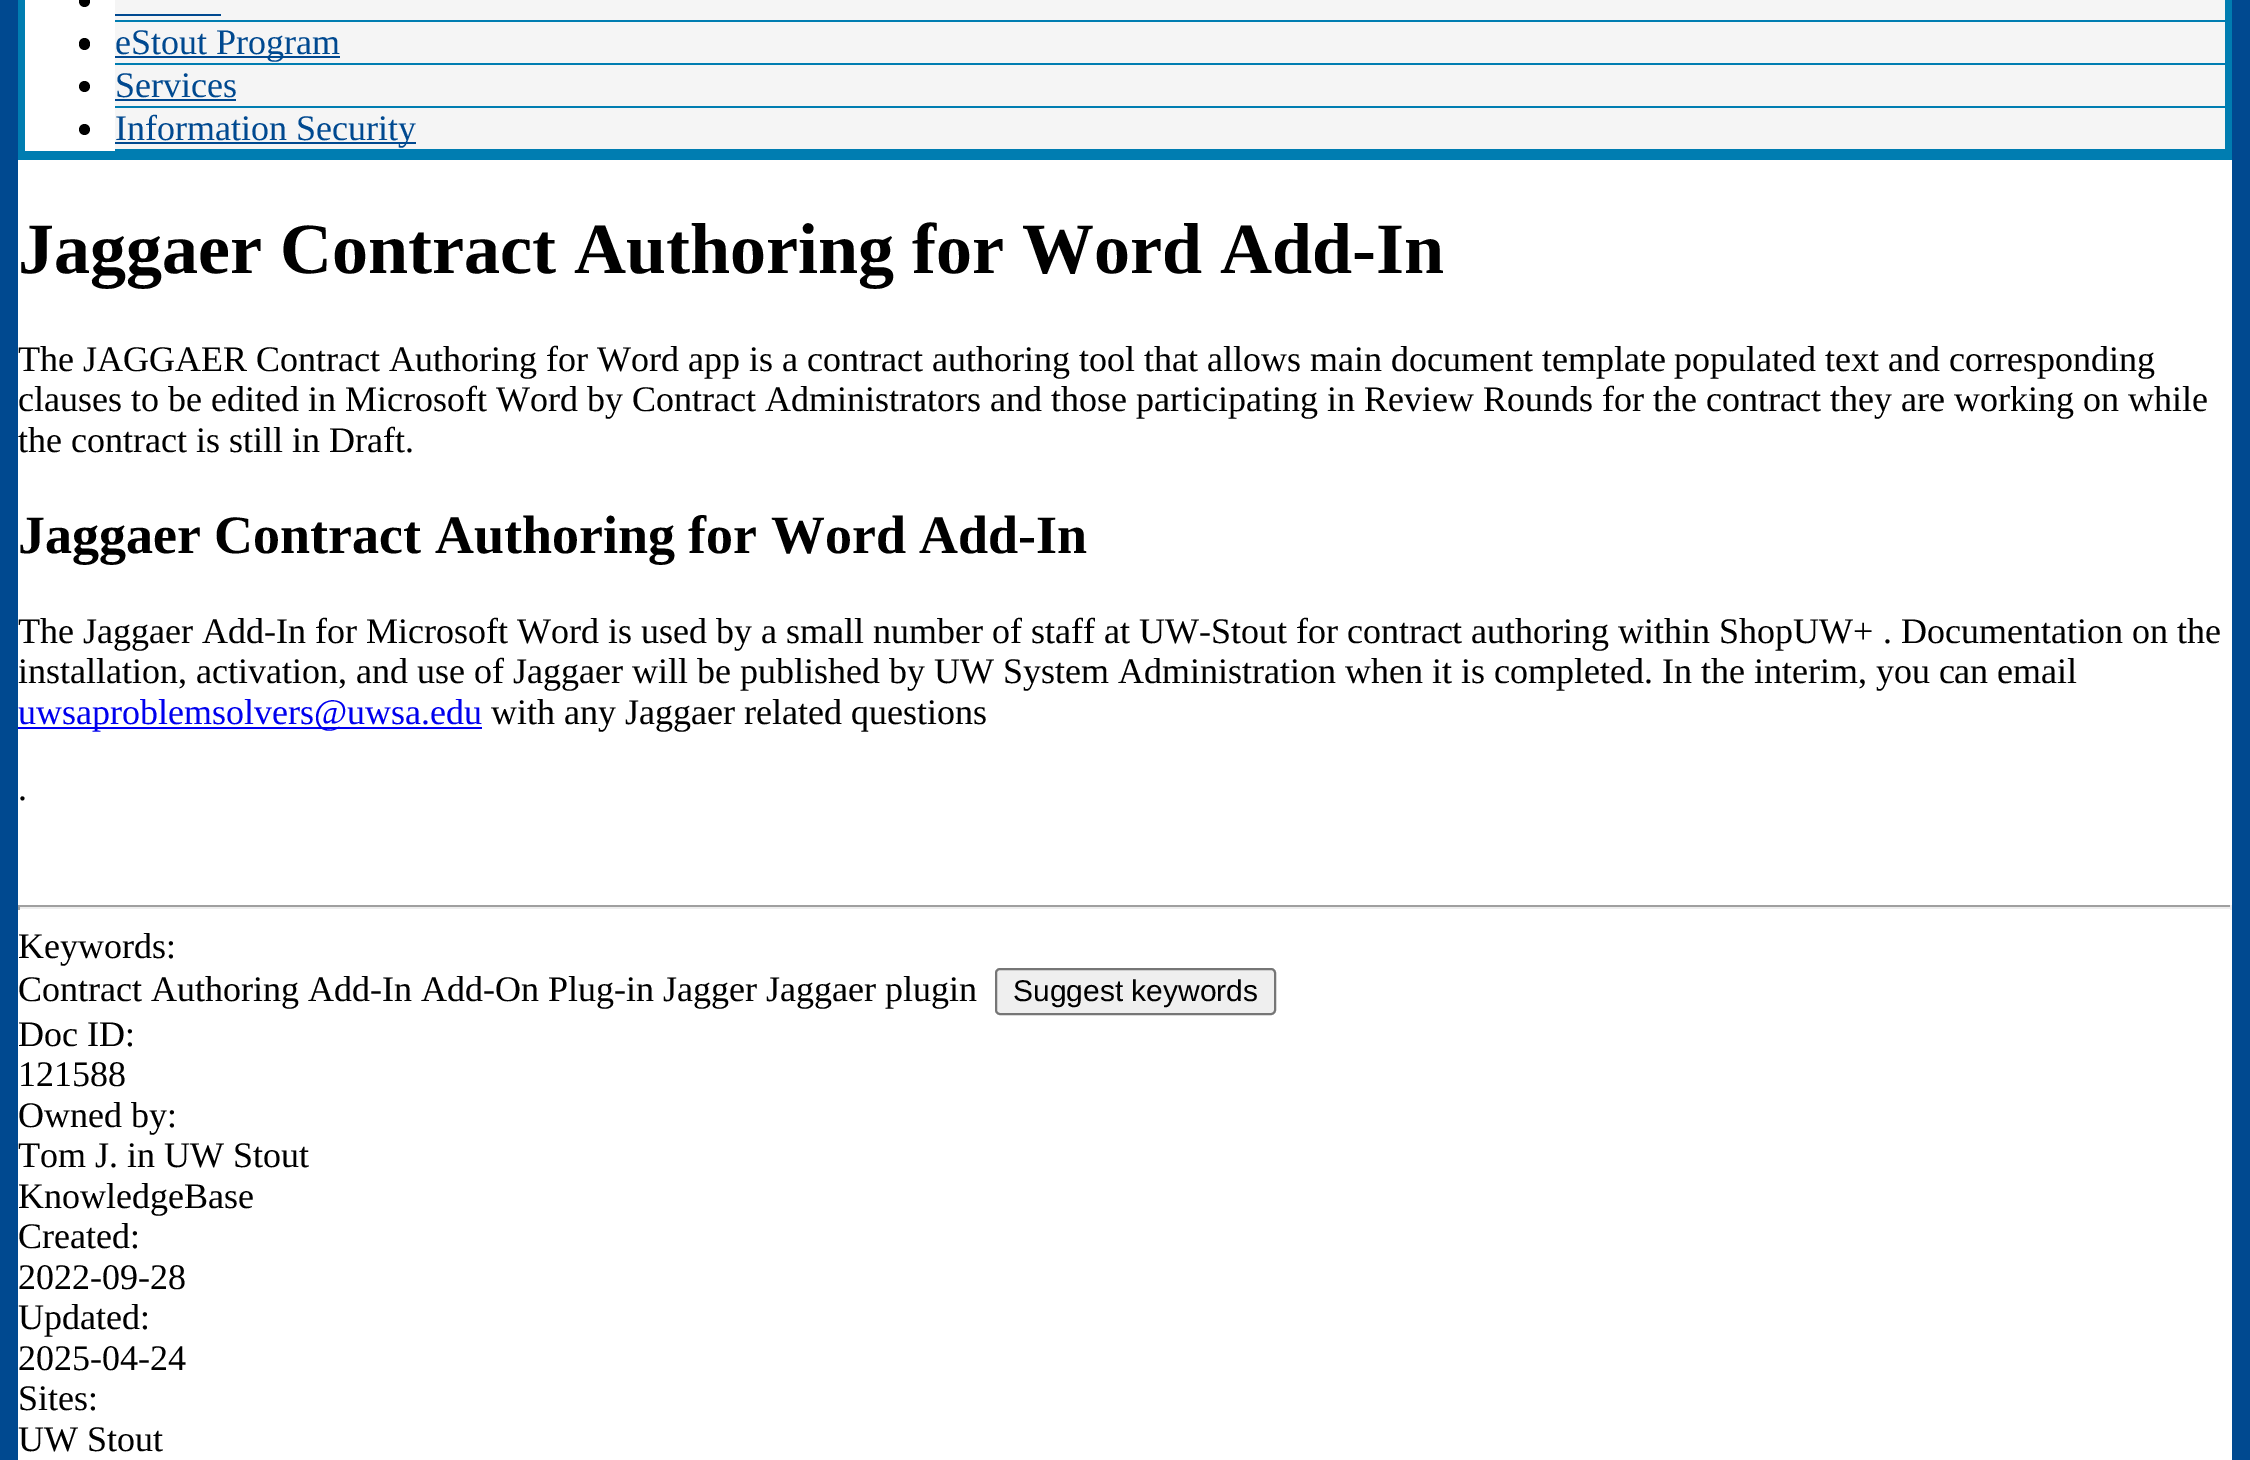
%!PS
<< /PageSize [2250 1460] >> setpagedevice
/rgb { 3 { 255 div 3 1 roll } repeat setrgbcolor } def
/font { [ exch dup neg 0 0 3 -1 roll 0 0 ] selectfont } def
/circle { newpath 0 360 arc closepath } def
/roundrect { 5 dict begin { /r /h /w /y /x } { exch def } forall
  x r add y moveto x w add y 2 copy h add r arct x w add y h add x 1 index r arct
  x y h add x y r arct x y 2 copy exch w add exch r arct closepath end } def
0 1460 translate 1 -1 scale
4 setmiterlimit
0 73 144 rgb
0 0 2250 1460 rectfill
[
  [18 0 2214 1460 255 255 255]
  [2225 0 7 151 0 125 177]
  [25 151 2207 9 0 125 177]
  [18 0 7 160 0 125 177]
  [115 0 2110 63 245 245 245]
  [115 20 2110 2 0 125 177]
] { aload pop rgb rectfill } forall
0 0 0 rgb
84.5 1.5 5.5 circle fill
0 73 144 rgb
115 14 106 2 rectfill
0 125 177 rgb
115 63 2110 2 rectfill
0 0 0 rgb
79 38 11 12 5.5 roundrect fill
[
  [115 56 225 2 0 73 144]
  [115 65 2110 41 245 245 245]
  [115 106 2110 2 0 125 177]
] { aload pop rgb rectfill } forall
0 0 0 rgb
84.5 86.5 5.5 circle fill
[
  [115 99 121 2 0 73 144]
  [115 108 2110 41 245 245 245]
  [115 149 2110 2 0 125 177]
] { aload pop rgb rectfill } forall
0 0 0 rgb
84.5 129.5 5.5 circle fill
[
  [115 142 301 2 0 73 144]
  [18 727 464 2 0 0 238]
  [18 905 2214 2 159 159 159]
  [2230 905 2 5 238 238 238]
  [18 907 2214 2 238 238 238]
  [18 905 2 5 159 159 159]
] { aload pop rgb rectfill } forall
239 239 239 rgb
996 969 279 45 4 roundrect gsave fill grestore
118 118 118 rgb
2 setlinewidth
stroke
/LiberationSerif-Regular 36 font
0 73 144 rgb
[
  [(eStout Program) 115 54]
  [(Services) 115 97]
  [(Information Security) 115 140]
] { aload pop moveto show } forall
/LiberationSerif-Bold 72 font
0 0 0 rgb
18 273 moveto (Jaggaer Contract Authoring for Word Add-In) show
/LiberationSerif-Regular 36 font
[
  [(The JAGGAER Contract Authoring for Word app is a contract authoring tool that allows main document template populated text and corresponding) 18 371]
  [(clauses to be edited in Microsoft Word by Contract Administrators and those participating in Review Rounds for the contract they are working on while) 18 411]
  [(the contract is still in Draft.) 18 452]
] { aload pop moveto show } forall
/LiberationSerif-Bold 54 font
18 553 moveto (Jaggaer Contract Authoring for Word Add-In) show
/LiberationSerif-Regular 36 font
18 643 moveto (The Jaggaer Add-In for Microsoft Word is used by a small number of staff at UW-Stout for contract authoring within ShopUW+ . Documentation on the) show
18 683 moveto (installation, activation, and use of Jaggaer will be published by UW System Administration when it is completed. In the interim, you can email) show
0 0 238 rgb
18 724 moveto (uwsaproblemsolvers@uwsa.edu) show
0 0 0 rgb
[
  [(with any Jaggaer related questions) 491 724]
  [(.) 18 800]
  [(Keywords:) 18 958]
  [(Contract Authoring Add-In Add-On Plug-in Jagger Jaggaer plugin) 18 1001]
] { aload pop moveto show } forall
/LiberationSans-Regular 30 font
1013 1001 moveto (Suggest keywords) show
/LiberationSerif-Regular 36 font
[
  [(Doc ID:) 18 1046]
  [(121588) 18 1086]
  [(Owned by:) 18 1127]
  [(Tom J. in UW Stout) 18 1167]
  [(KnowledgeBase) 18 1208]
  [(Created:) 18 1248]
  [(2022-09-28) 18 1289]
  [(Updated:) 18 1329]
  [(2025-04-24) 18 1370]
  [(Sites:) 18 1410]
  [(UW Stout) 18 1451]
] { aload pop moveto show } forall
showpage
